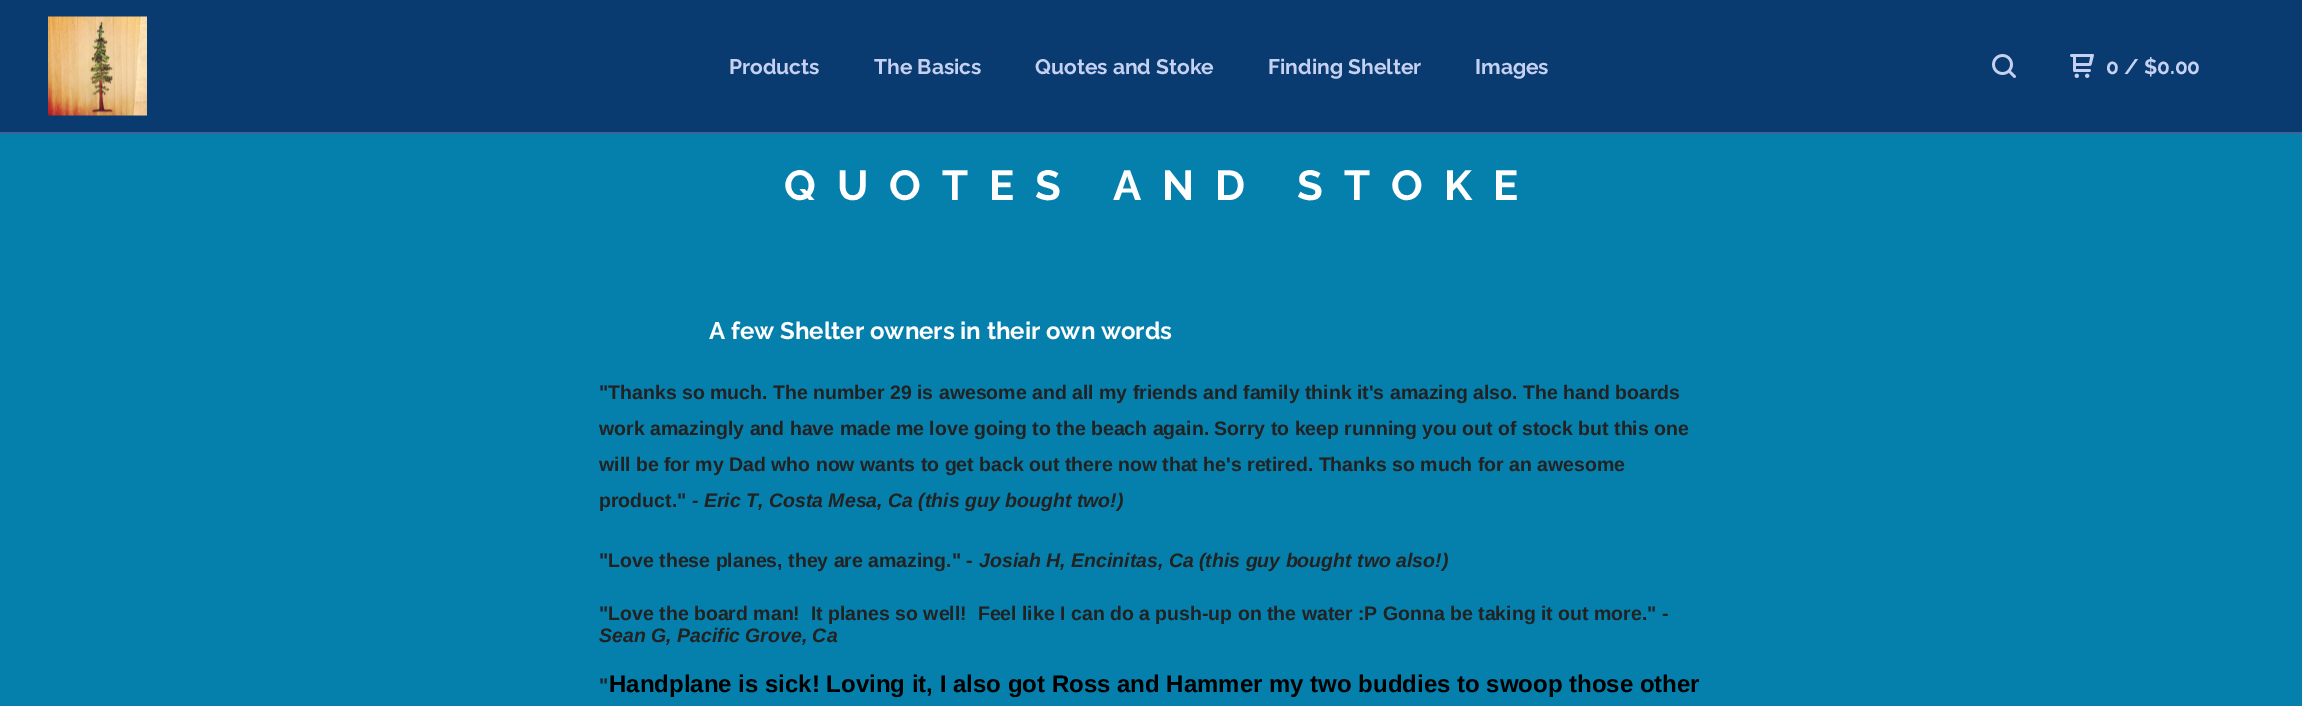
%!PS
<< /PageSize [2302 706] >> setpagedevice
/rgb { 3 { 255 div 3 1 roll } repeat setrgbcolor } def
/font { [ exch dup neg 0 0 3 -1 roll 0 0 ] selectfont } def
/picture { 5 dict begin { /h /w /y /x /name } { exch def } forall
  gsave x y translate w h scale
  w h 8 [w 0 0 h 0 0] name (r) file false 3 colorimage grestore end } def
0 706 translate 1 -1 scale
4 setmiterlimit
5 127 171 rgb
0 0 2302 706 rectfill
10 59 112 rgb
0 0 2302 132 rectfill
58 101 153 rgb
0 132 2302 2 rectfill
(img/1.rgb) 48 16 99 100 picture
(img/2.rgb) 1992 54 24 24 picture
(img/3.rgb) 2070 54 24 24 picture
/Raleway-Bold 21 font
198 209 242 rgb
[
  [(Products) 729 74]
  [(The Basics) 874 74]
  [(Quotes and Stoke) 1035 74]
  [(Finding Shelter) 1268 74]
  [(Images) 1475 74]
  [(0 / $0.00) 2106 74]
] { aload pop moveto show } forall
/Raleway-Bold 42 font
255 255 255 rgb
784 200 moveto 21 0 (QUOTES AND STOKE) ashow
/Raleway-Bold 24 font
709 339 moveto (A few Shelter owners in their own words) show
/LiberationSans-Bold 19.5 font
34 34 34 rgb
[
  [("Thanks so much. The number 29 is awesome and all my friends and family think it's amazing also. The hand boards) 599 399]
  [(work amazingly and have made me love going to the beach again. Sorry to keep running you out of stock but this one) 599 435]
  [(will be for my Dad who now wants to get back out there now that he's retired. Thanks so much for an awesome) 599 471]
  [(product.") 599 507]
] { aload pop moveto show } forall
/LiberationSans-BoldItalic 19.5 font
692 507 moveto (- Eric T, Costa Mesa, Ca \(this guy bought two!\)) show
/LiberationSans-Bold 19.5 font
599 567 moveto ("Love these planes, they are amazing." -) show
/LiberationSans-BoldItalic 19.5 font
979 567 moveto (Josiah H, Encinitas, Ca \(this guy bought two also!\)) show
/LiberationSans-Bold 19.5 font
599 620 moveto ("Love the board man!  It planes so well!  Feel like I can do a push-up on the water :P Gonna be taking it out more." -) show
/LiberationSans-BoldItalic 19.5 font
599 642 moveto (Sean G, Pacific Grove, Ca) show
/LiberationSans-Bold 19.5 font
599 692 moveto (") show
/LiberationSans-Bold 24 font
0 0 0 rgb
609 692 moveto (Handplane is sick! Loving it, I also got Ross and Hammer my two buddies to swoop those other) show
showpage
